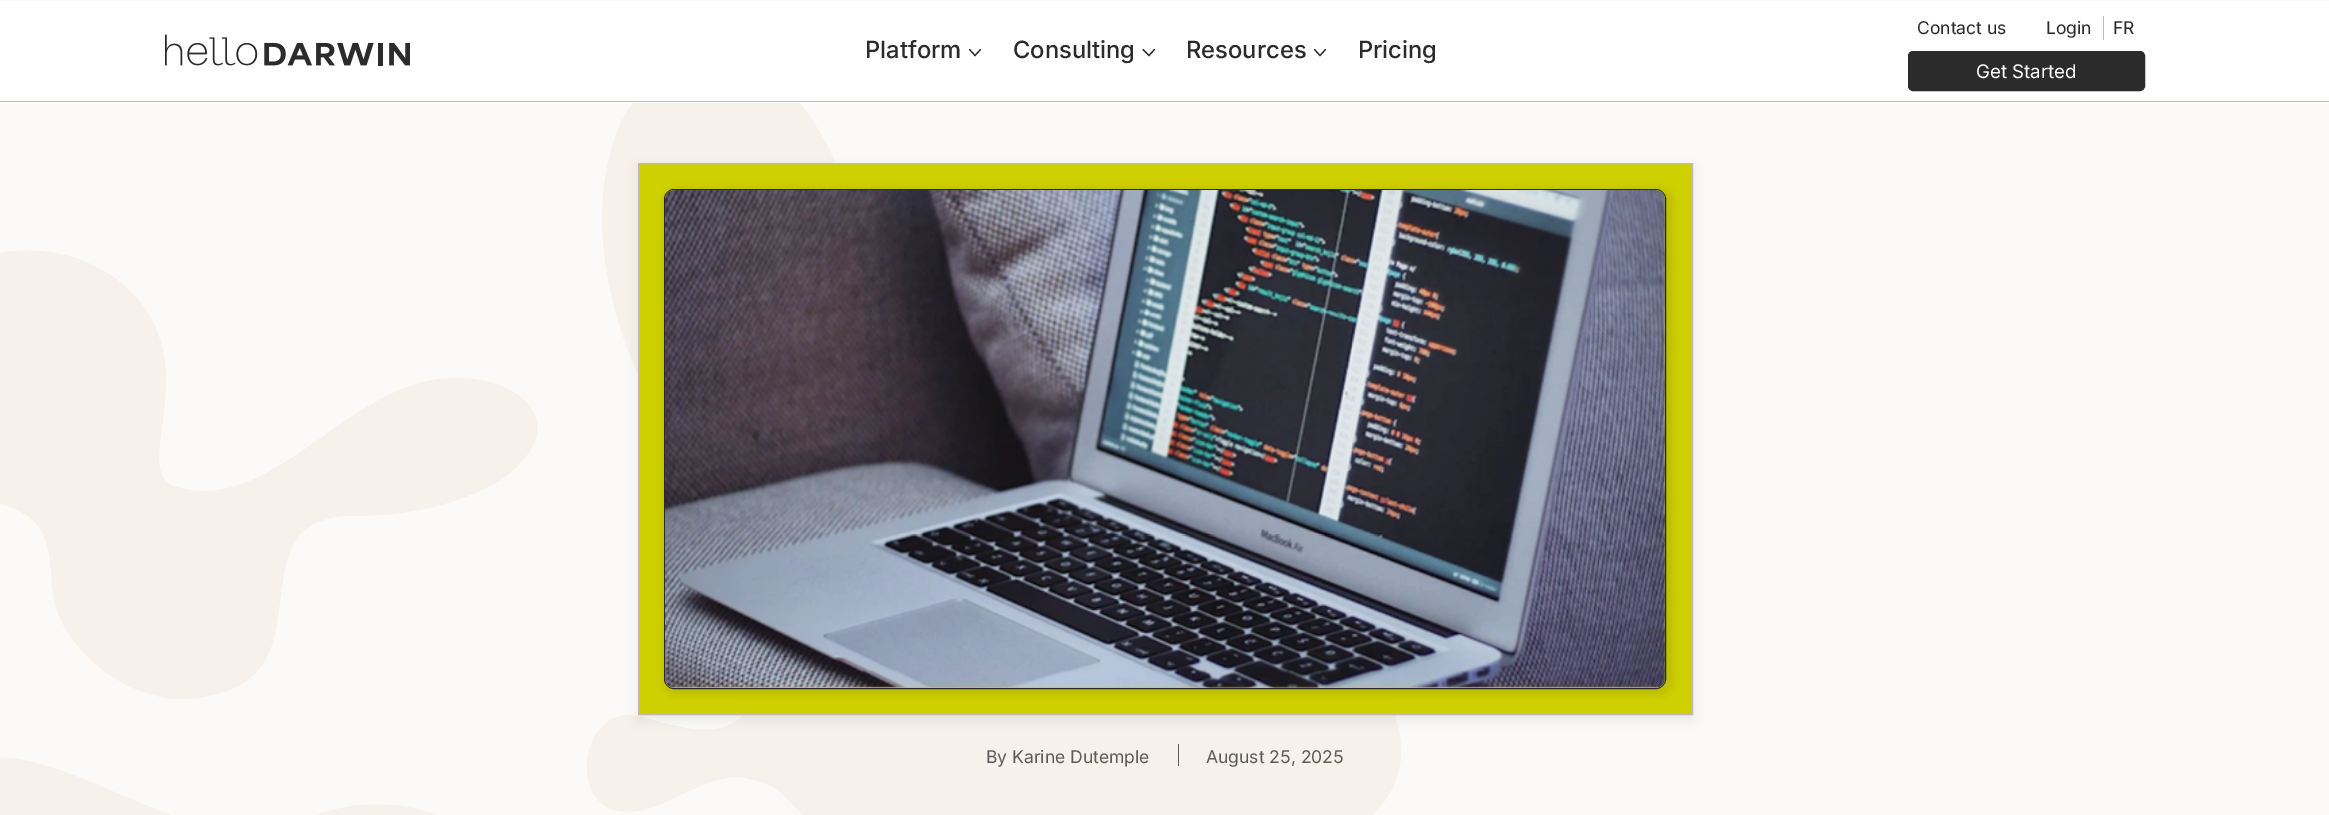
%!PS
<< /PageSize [2329 815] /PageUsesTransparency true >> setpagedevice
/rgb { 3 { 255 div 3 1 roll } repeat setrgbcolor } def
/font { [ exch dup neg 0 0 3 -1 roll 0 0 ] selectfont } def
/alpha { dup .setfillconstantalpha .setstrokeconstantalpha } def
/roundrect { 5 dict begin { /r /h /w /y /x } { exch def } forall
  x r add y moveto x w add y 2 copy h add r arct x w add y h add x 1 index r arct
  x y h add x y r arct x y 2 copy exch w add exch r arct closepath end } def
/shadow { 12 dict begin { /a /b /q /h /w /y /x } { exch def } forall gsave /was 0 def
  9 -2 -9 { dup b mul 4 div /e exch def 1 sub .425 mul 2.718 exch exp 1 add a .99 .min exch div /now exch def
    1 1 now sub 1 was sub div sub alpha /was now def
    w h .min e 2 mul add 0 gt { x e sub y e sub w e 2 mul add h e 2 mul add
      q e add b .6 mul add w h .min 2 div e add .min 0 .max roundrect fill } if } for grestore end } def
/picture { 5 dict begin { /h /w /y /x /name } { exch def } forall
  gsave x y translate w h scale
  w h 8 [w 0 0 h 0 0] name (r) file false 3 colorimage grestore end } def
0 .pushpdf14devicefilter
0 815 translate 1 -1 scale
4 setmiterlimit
252 250 248 rgb
0 0 2329 815 rectfill
255 255 255 rgb
0 1 2329 102 rectfill
187 187 187 rgb
0 101 2329 1 rectfill
(img/1.rgb) 165 34 245 32 picture
43 43 43 rgb
1.2 setlinewidth
1 setlinecap
980.5 49.5 moveto 975 55.5 lineto 969.5 49.5 lineto stroke
1154.5 49.5 moveto 1149 55.5 lineto 1143 49.5 lineto stroke
1325.5 49.5 moveto 1320 55.5 lineto 1314.5 49.5 lineto stroke
187 187 187 rgb
2103 16 1 24 rectfill
43 43 43 rgb
1908.5 51.5 236 39 4.5 roundrect gsave fill grestore
1 setlinewidth
0 setlinecap
stroke
(img/2.rgb) 0 103 1401 712 picture
638 168 1055 552 0 5 0.08 shadow
206 208 0 rgb
638.5 163.5 moveto 1692.5 163.5 lineto 1692.5 714.5 lineto 638.5 714.5 lineto closepath gsave fill grestore
187 187 187 rgb
stroke
gsave
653 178 moveto 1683 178 lineto 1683 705 lineto 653 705 lineto closepath 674 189 moveto 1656 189 lineto 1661.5 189 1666 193.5 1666 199 curveto 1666 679 lineto 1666 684.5 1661.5 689 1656 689 curveto 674 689 lineto 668.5 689 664 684.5 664 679 curveto 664 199 lineto 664 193.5 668.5 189 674 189 curveto closepath eoclip newpath
43 43 43 rgb
663 188 1010 507 14 3 0.1 shadow
grestore
43 43 43 rgb
664.5 189.5 1001 499 9.5 roundrect stroke
(img/3.rgb) 665 190 1000 498 picture
92 92 92 rgb
1178 744 1 22 rectfill
/Inter-Medium 23.75 font
43 43 43 rgb
[
  [(Platform) 865 58]
  [(Consulting) 1013 58]
  [(Resources) 1186 58]
  [(Pricing) 1358 58]
] { aload pop moveto show } forall
/Inter-Regular 17.5 font
[
  [(Contact us) 1917 34]
  [(Login) 2046 34]
  [(FR) 2113 34]
] { aload pop moveto show } forall
/Inter-Regular 18.75 font
255 255 255 rgb
1976 78 moveto (Get Started) show
/Inter-Regular 17.5 font
92 92 92 rgb
986 763 moveto (By Karine Dutemple) show
1206 763 moveto (August 25, 2025) show
.poppdf14devicefilter showpage
